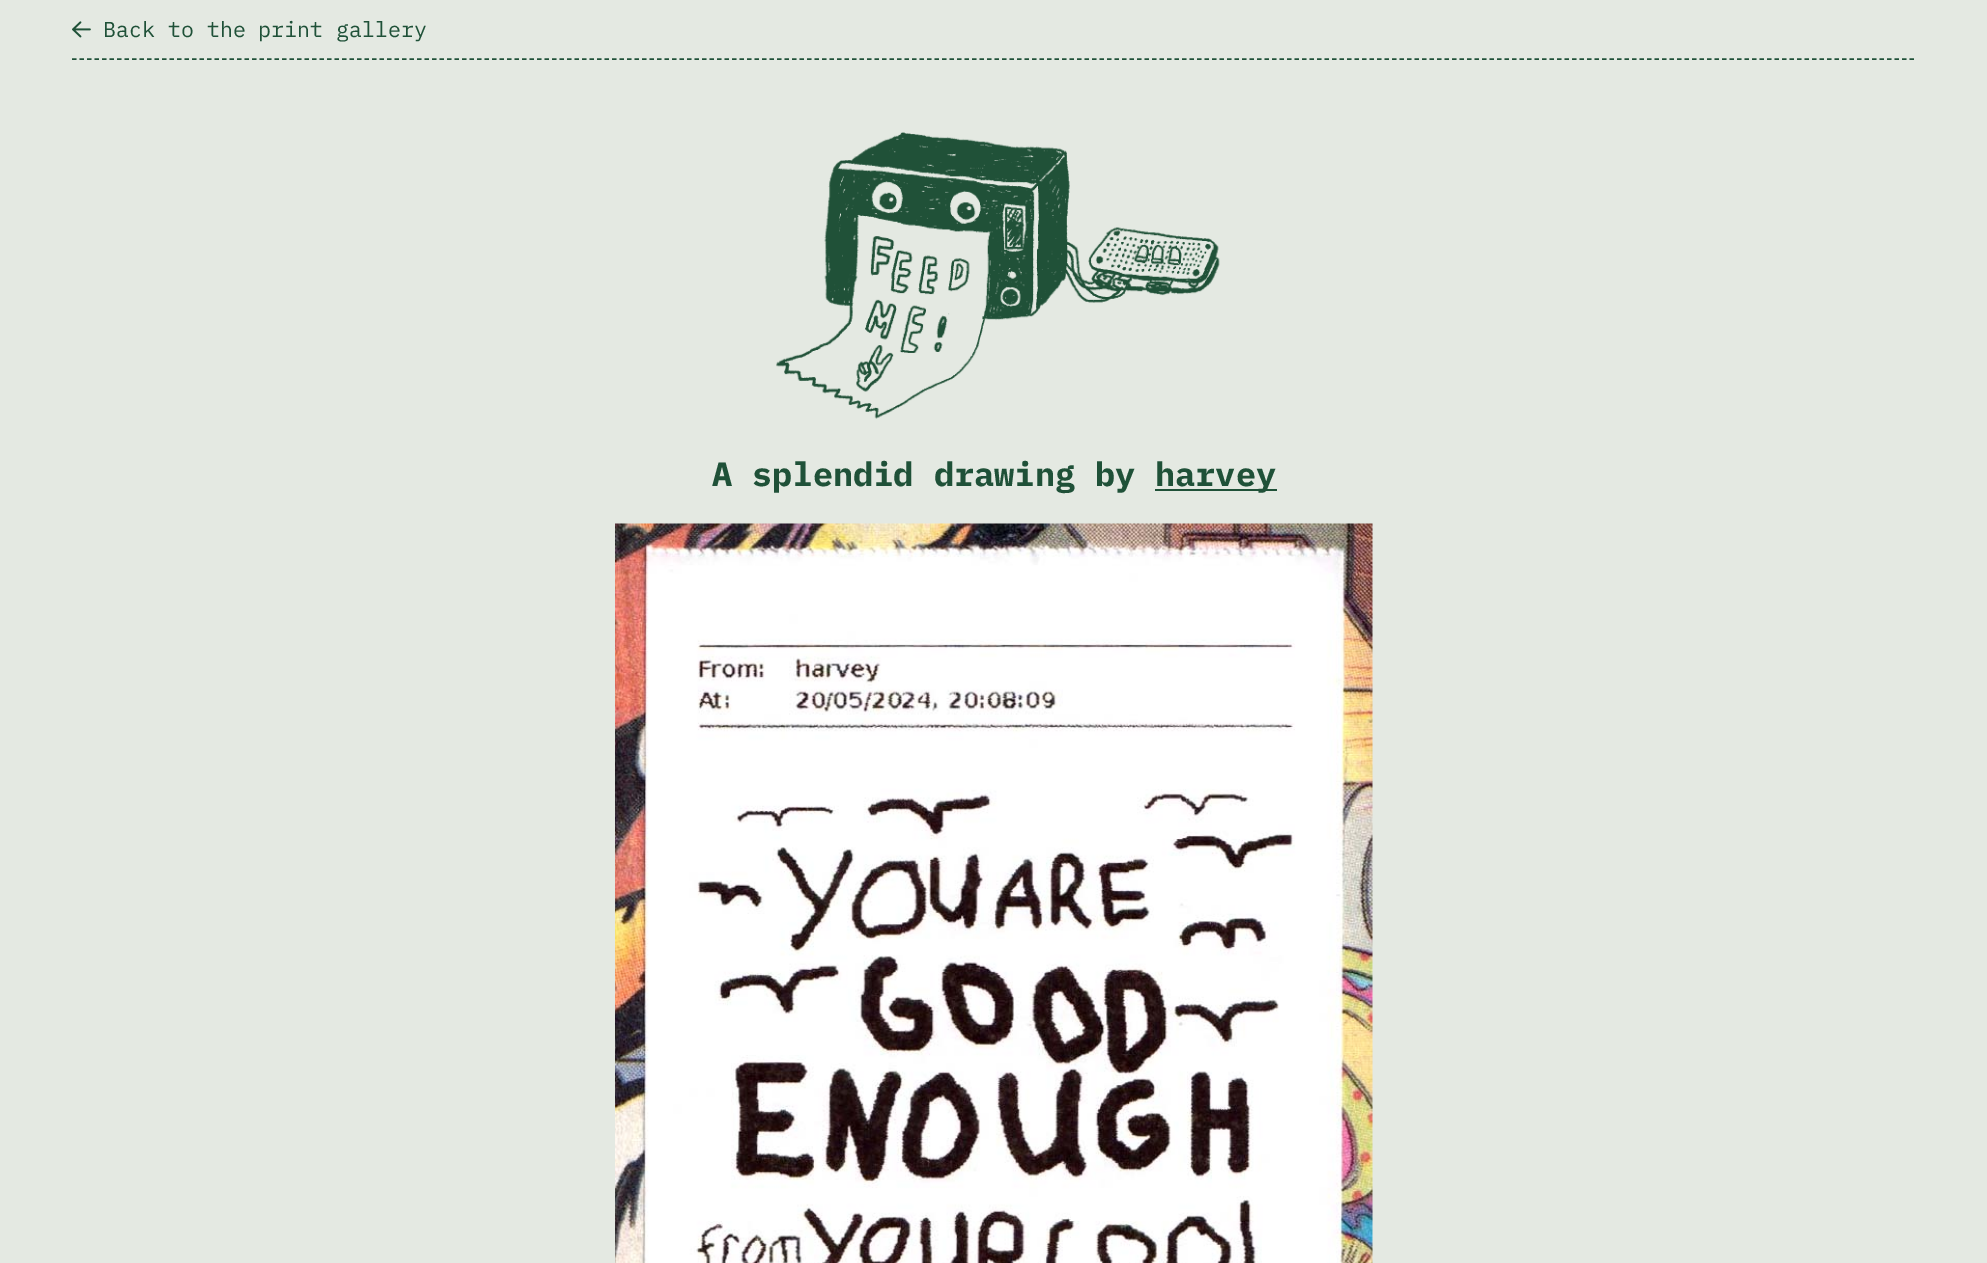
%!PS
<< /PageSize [1987 1263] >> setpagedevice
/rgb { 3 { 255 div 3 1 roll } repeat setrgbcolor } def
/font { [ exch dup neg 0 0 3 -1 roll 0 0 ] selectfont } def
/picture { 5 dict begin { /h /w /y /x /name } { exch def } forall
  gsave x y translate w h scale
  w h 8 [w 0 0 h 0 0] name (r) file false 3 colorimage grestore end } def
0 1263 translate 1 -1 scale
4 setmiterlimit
228 233 226 rgb
0 0 1987 1263 rectfill
31 81 56 rgb
1.5 setlinewidth
[4.5 3] 0 setdash
72 59 moveto 1915.5 59 lineto stroke
(img/1.rgb) 72 21 19 17 picture
(img/2.rgb) 776 132 444 287 picture
1155 489 122 2 rectfill
(img/3.rgb) 615 523 758 740 picture
/IBMPlexMono-Regular 21.6 font
103 37 moveto (Back to the print gallery) show
/IBMPlexMono-Bold 33.6 font
712 486 moveto (A splendid drawing by) show
1155 486 moveto (harvey) show
showpage
